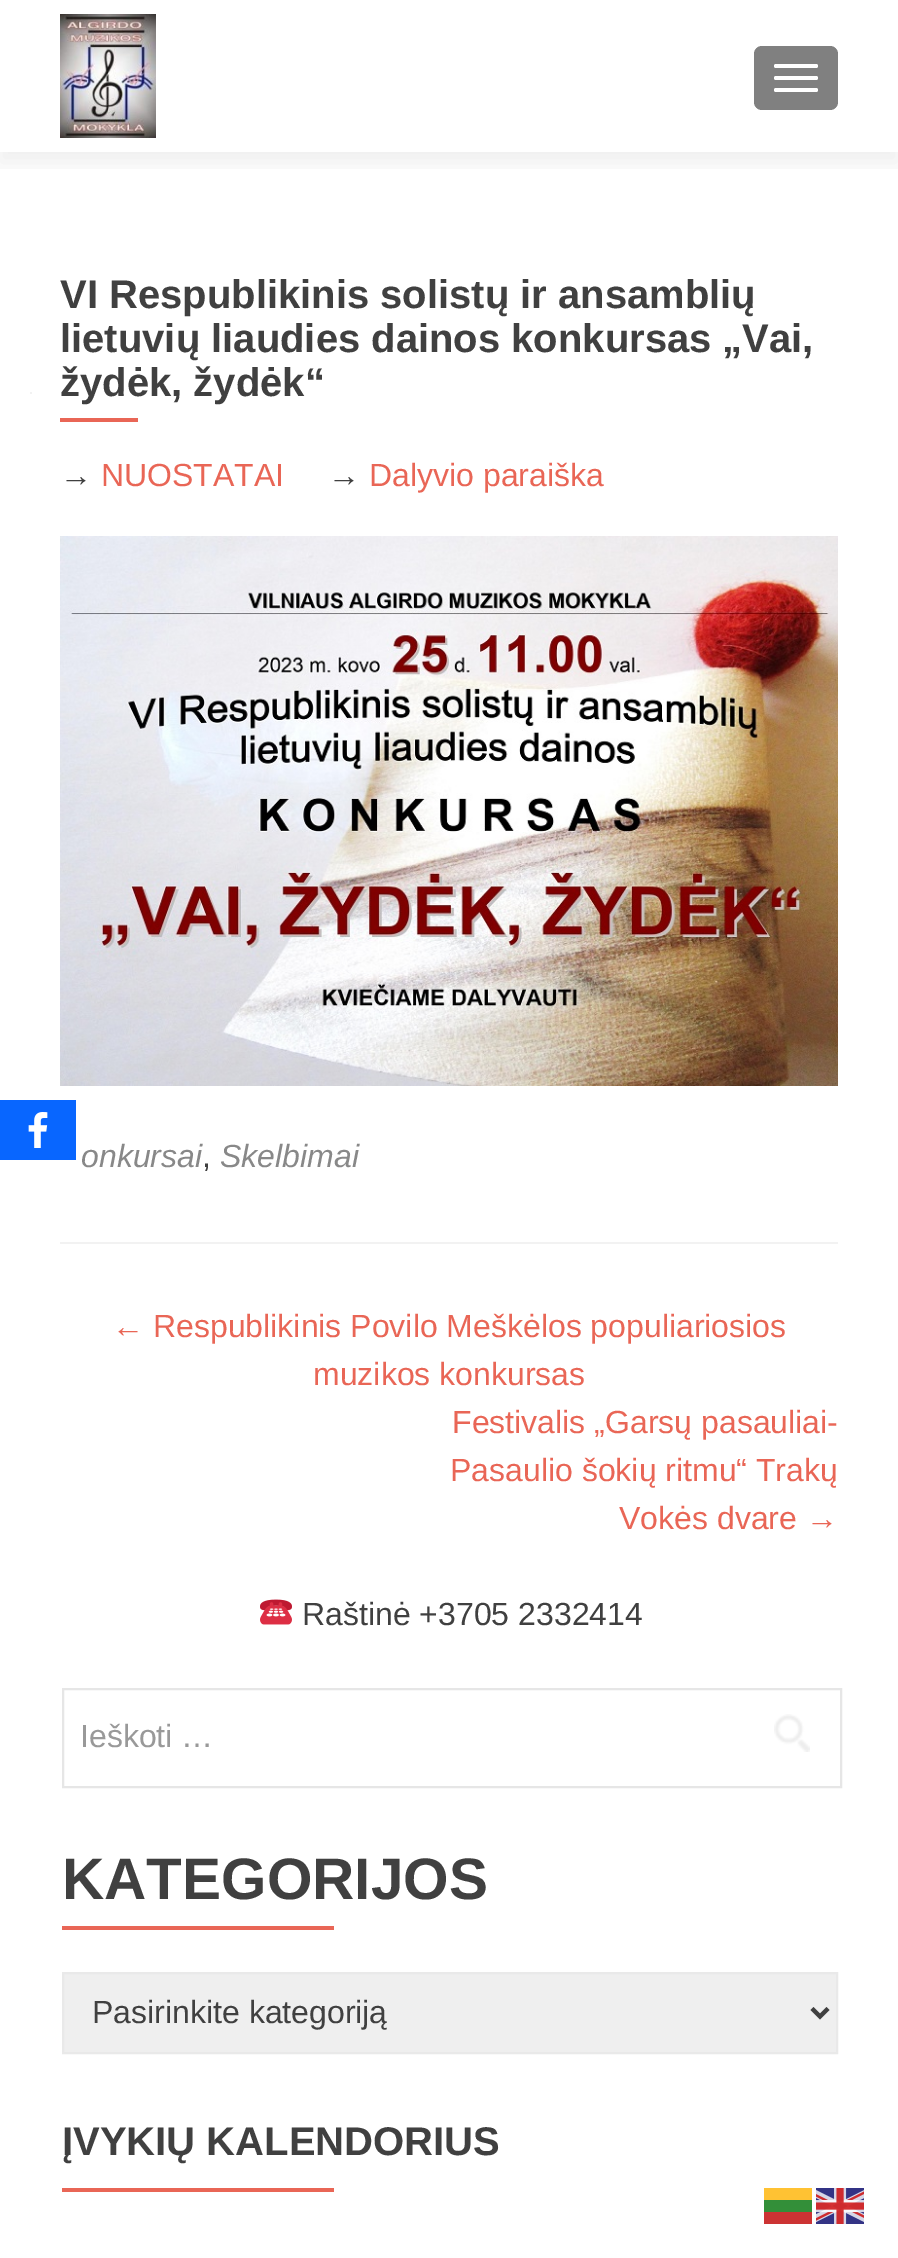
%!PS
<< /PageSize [898 2258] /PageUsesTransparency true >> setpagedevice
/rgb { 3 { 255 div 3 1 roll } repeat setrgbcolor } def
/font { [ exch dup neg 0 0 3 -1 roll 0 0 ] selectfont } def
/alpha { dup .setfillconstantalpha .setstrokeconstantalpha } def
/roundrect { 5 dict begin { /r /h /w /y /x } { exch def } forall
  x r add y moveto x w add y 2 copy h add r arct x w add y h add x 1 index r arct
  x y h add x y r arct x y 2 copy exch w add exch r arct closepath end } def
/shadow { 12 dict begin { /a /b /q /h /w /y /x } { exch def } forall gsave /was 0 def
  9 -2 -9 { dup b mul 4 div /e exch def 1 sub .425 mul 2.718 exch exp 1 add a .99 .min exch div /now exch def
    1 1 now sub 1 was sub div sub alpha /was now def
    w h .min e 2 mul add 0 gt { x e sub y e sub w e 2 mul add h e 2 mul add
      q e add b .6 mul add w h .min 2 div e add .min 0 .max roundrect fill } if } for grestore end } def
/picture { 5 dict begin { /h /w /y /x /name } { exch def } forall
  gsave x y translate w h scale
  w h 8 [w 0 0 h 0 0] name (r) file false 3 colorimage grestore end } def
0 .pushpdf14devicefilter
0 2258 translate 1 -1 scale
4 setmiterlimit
255 255 255 rgb
0 0 898 2258 rectfill
8 102 255 rgb
0 1100 76 60 rectfill
(img/1.rgb) 28 1112 20 36 picture
gsave
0 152 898 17 rectclip
50 50 50 rgb
0 10 898 152 0 11 0.08 shadow
grestore
(img/2.rgb) 60 14 96 124 picture
128 128 128 rgb
754 46 84 64 8 roundrect fill
255 255 255 rgb
774 64 44 4 2 roundrect fill
774 76 44 4 2 roundrect fill
774 88 44 4 2 roundrect fill
242 242 242 rgb
60 1242 778 2 rectfill
233 102 86 rgb
60 418 78 4 rectfill
(img/3.rgb) 60 536 778 550 picture
242 242 242 rgb
30 392 2 2 rectfill
(img/4.rgb) 260 1599 32 26 picture
230 230 230 rgb
2 setlinewidth
63 1689 778 98 rectstroke
(img/5.rgb) 774 1714 36 38 picture
233 102 86 rgb
62 1926 272 4 rectfill
239 239 239 rgb
63 1973 moveto 837 1973 lineto 837 2053 lineto 63 2053 lineto closepath gsave fill grestore
233 233 233 rgb
stroke
64 64 64 rgb
4 setlinewidth
812 2008.5 moveto 820 2016.5 lineto 828 2008.5 lineto stroke
233 102 86 rgb
62 2188 272 4 rectfill
255 194 51 rgb
764 2188 48 12 rectfill
(img/6.rgb) 816 2188 48 36 picture
51 143 57 rgb
764 2200 48 12 rectfill
204 51 51 rgb
764 2212 48 12 rectfill
/LiberationSans-Bold 40 font
64 64 64 rgb
[
  [(VI Respublikinis solistų ir ansamblių) 60 308]
  [(lietuvių liaudies dainos konkursas „Vai,) 60 352]
  [(žydėk, žydėk“) 60 396]
] { aload pop moveto show } forall
/LiberationSans-Regular 32 font
60 486 moveto (→) show
233 102 86 rgb
101 486 moveto (NUOSTATAI) show
64 64 64 rgb
328 486 moveto (→) show
233 102 86 rgb
369 486 moveto (Dalyvio paraiška) show
/LiberationSans-Italic 32 font
136 136 136 rgb
81 1167 moveto (onkursai) show
/LiberationSans-Regular 32 font
64 64 64 rgb
202 1167 moveto (,) show
/LiberationSans-Italic 32 font
136 136 136 rgb
220 1167 moveto (Skelbimai) show
/LiberationSans-Regular 32 font
233 102 86 rgb
[
  [(← Respublikinis Povilo Meškėlos populiariosios) 112 1337]
  [(muzikos konkursas) 313 1385]
  [(Festivalis „Garsų pasauliai-) 452 1433]
  [(Pasaulio šokių ritmu“ Trakų) 450 1481]
  [(Vokės dvare →) 619 1529]
] { aload pop moveto show } forall
64 64 64 rgb
302 1625 moveto (Raštinė +3705 2332414) show
153 153 153 rgb
80 1747 moveto (Ieškoti …) show
/LiberationSans-Bold 58.5 font
64 64 64 rgb
62 1899 moveto (KATEGORIJOS) show
/LiberationSans-Regular 32 font
92 2023 moveto (Pasirinkite kategoriją) show
/LiberationSans-Bold 40 font
62 2155 moveto (ĮVYKIŲ KALENDORIUS) show
.poppdf14devicefilter showpage
